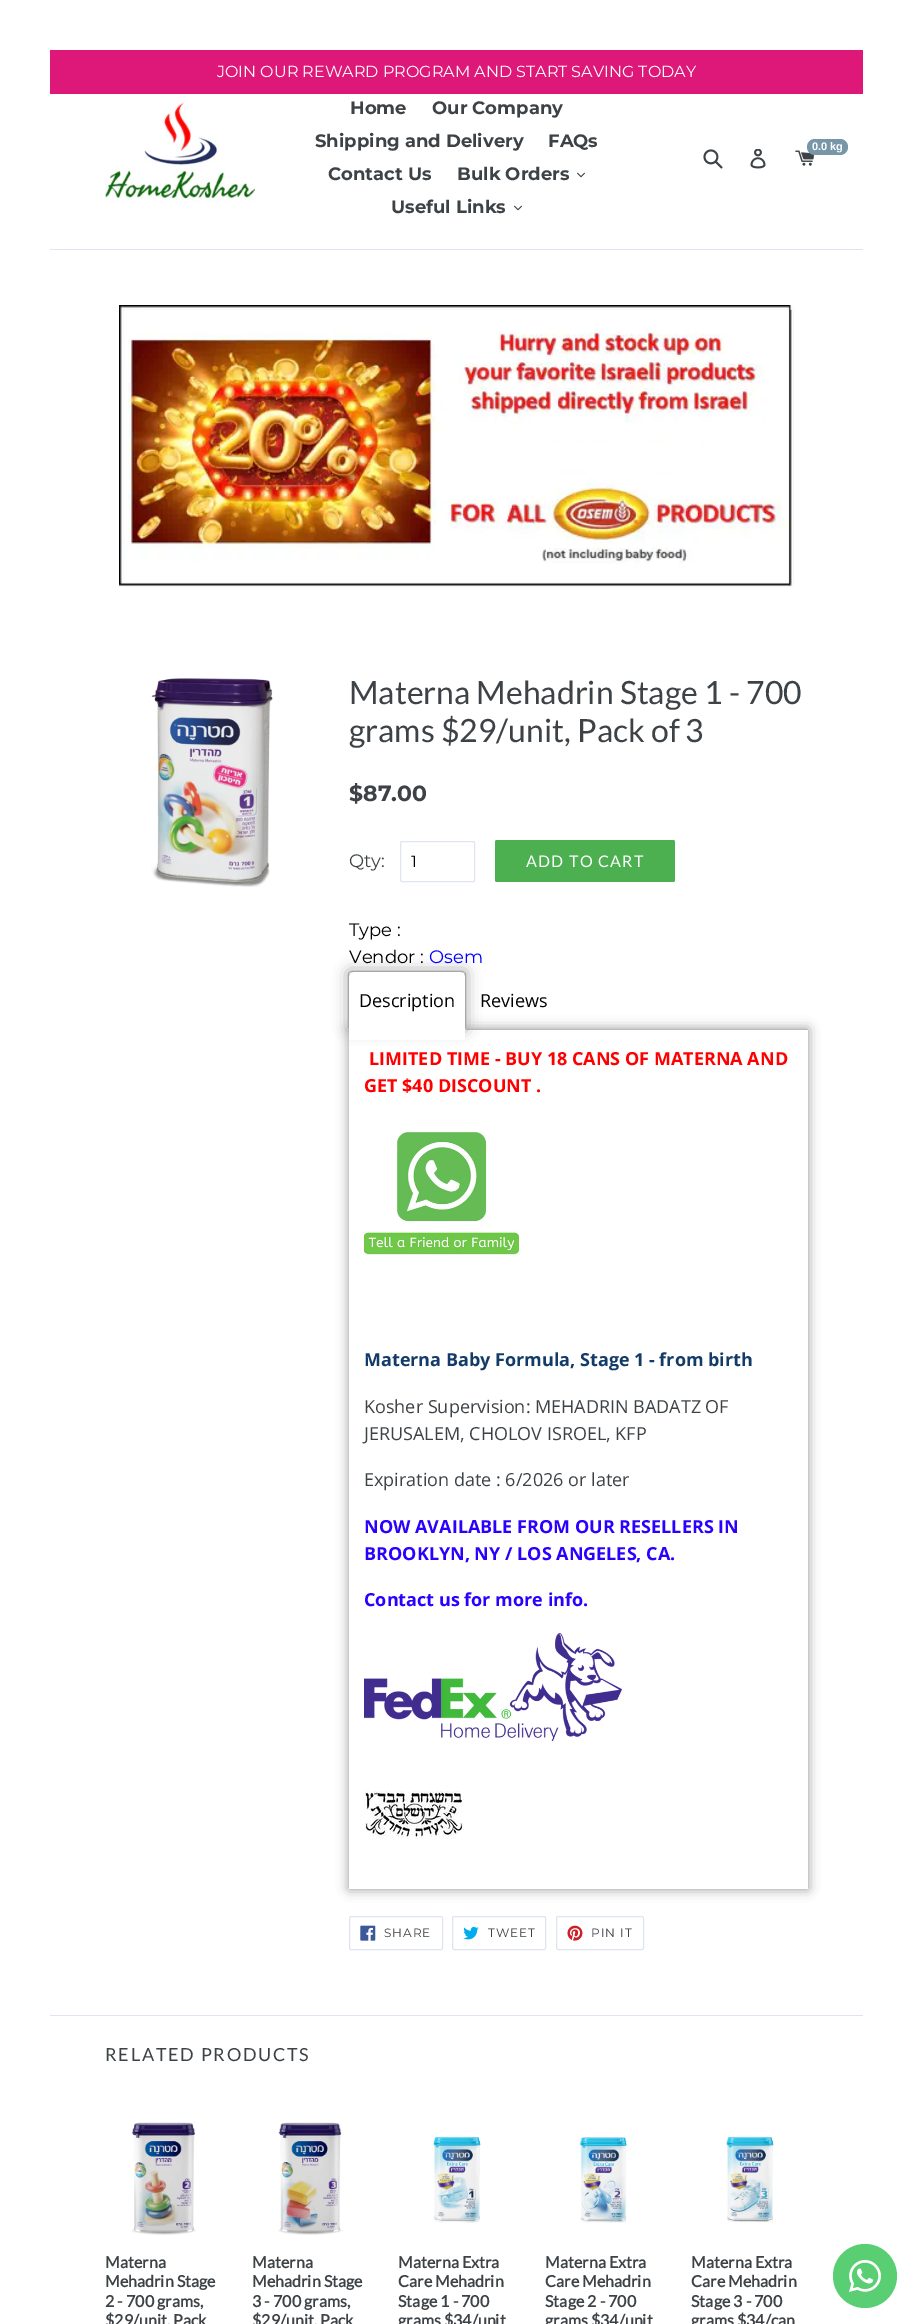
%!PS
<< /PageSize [913 2324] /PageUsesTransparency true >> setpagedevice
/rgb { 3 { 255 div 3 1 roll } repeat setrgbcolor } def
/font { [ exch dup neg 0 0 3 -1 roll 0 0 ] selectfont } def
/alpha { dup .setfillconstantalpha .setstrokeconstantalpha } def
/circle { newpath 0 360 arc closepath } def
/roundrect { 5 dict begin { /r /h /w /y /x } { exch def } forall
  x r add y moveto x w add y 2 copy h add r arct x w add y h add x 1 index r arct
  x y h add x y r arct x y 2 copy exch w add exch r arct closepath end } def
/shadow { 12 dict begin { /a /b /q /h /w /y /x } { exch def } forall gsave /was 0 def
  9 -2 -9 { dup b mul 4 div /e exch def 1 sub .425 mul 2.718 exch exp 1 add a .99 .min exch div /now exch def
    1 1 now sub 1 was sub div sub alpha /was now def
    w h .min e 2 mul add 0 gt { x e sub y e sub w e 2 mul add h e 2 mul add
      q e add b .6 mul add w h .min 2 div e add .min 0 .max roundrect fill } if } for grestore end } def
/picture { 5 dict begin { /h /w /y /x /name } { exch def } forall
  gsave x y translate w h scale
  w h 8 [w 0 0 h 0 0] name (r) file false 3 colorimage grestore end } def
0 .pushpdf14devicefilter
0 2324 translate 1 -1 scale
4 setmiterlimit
255 255 255 rgb
0 0 913 2324 rectfill
222 24 121 rgb
50 50 813 44 rectfill
223 229 240 rgb
50 249 813 1 rectfill
(img/1.rgb) 105 102 150 101 picture
(img/2.rgb) 577 172 8 6 picture
(img/2.rgb) 514 205 8 6 picture
(img/3.rgb) 795 150 20 16 picture
119 150 168 rgb
807 139 41 16 8 roundrect fill
(img/4.rgb) 703 149 20 20 picture
(img/5.rgb) 750 149 16 20 picture
(img/6.rgb) 119 305 675 282 picture
(img/7.rgb) 151 678 122 209 picture
223 229 240 rgb
400.5 841.5 74 40 1.5 roundrect stroke
76 175 80 rgb
495 840 180 42 2 roundrect fill
gsave
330 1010 moveto 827 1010 lineto 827 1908 lineto 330 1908 lineto closepath 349 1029 moveto 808 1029 lineto 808 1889 lineto 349 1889 lineto closepath eoclip newpath
147 147 147 rgb
349 1029 459 860 0 6 1 shadow
grestore
255 255 255 rgb
353 971 moveto 461 971 lineto 464 971 466 973 466 976 curveto 466 1030 lineto 348 1030 lineto 348 976 lineto 348 973 350 971 353 971 curveto closepath fill
187 187 187 rgb
353 971 moveto 352 971 350 972 349 972 curveto 350 973 lineto 353 972 lineto 461 972 lineto 464 973 lineto 465 972 lineto 464 972 462 971 461 971 curveto closepath fill
466 1030 moveto 466 976 lineto 466 974 466 973 465 972 curveto 464 973 lineto 465 976 lineto 465 1029 lineto closepath fill
255 255 255 rgb
466 1030 moveto 465 1029 lineto 349 1029 lineto 348 1030 lineto closepath fill
187 187 187 rgb
348 1030 moveto 349 1029 lineto 349 976 lineto 350 973 lineto 349 972 lineto 348 973 348 974 348 976 curveto closepath fill
466 1029 342 1 rectfill
gsave
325 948 moveto 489 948 lineto 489 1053 lineto 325 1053 lineto closepath 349 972 moveto 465 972 lineto 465 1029 lineto 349 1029 lineto closepath eoclip newpath
147 147 147 rgb
349 972 116 57 0 7.5 1 shadow
grestore
255 255 255 rgb
349 1029 116 11 rectfill
(img/8.rgb) 364 1131 155 124 picture
(img/9.rgb) 364 1633 258 108 picture
(img/10.rgb) 364 1791 100 48 picture
223 229 240 rgb
349.5 1916.5 93 33 1.5 roundrect stroke
(img/11.rgb) 360 1925 16 16 picture
452.5 1916.5 93 33 1.5 roundrect stroke
(img/12.rgb) 463 1926 16 14 picture
556.5 1916.5 87 33 1.5 roundrect stroke
(img/13.rgb) 567 1925 16 16 picture
50 2015 813 1 rectfill
(img/14.rgb) 131 2122 65 113 picture
(img/15.rgb) 278 2122 65 113 picture
(img/16.rgb) 433 2136 48 87 picture
(img/17.rgb) 579 2137 48 86 picture
(img/18.rgb) 726 2136 48 87 picture
89 206 114 rgb
865 2276 32 circle fill
(img/19.rgb) 849 2260 32 32 picture
/Montserrat-Regular 16 font
255 255 255 rgb
217 77 moveto (JOIN OUR REWARD PROGRAM AND START SAVING TODAY) show
/Montserrat-Bold 18 font
61 66 70 rgb
[
  [(Home) 350 114]
  [(Our Company) 432 114]
  [(Shipping and Delivery) 315 147]
  [(FAQs) 548 147]
  [(Contact Us) 328 180]
  [(Bulk Orders) 457 180]
  [(Useful Links) 391 213]
] { aload pop moveto show } forall
/LiberationSans-Bold 11 font
255 255 255 rgb
812 150 moveto (0.0 kg) show
/Lato-Regular 32 font
61 66 70 rgb
349 704 moveto (Materna Mehadrin Stage 1 - 700) show
349 742 moveto (grams $29/unit, Pack of 3) show
/Montserrat-Bold 22 font
349 801 moveto ($87.00) show
/Montserrat-Regular 18 font
349 867 moveto (Qty:) show
/Montserrat-Regular 16 font
0 0 0 rgb
411 867 moveto (1) show
/Lato-Regular 16 font
255 255 255 rgb
526 867 moveto 1.25 0 (ADD TO CART) ashow
/Montserrat-Regular 18 font
0 0 0 rgb
349 936 moveto (Type :) show
349 963 moveto (Vendor :) show
0 0 255 rgb
429 963 moveto (Osem) show
/OpenSans-Regular 18 font
0 0 0 rgb
359 1007 moveto (Description) show
480 1007 moveto (Reviews) show
/OpenSans-Bold 18 font
255 0 0 rgb
369 1065 moveto (LIMITED TIME - BUY 18 CANS OF MATERNA AND) show
364 1092 moveto (GET $40 DISCOUNT .) show
19 59 103 rgb
364 1366 moveto (Materna Baby Formula, Stage 1 - from birth) show
/OpenSans-Regular 18 font
61 66 70 rgb
[
  [(Kosher Supervision: MEHADRIN BADATZ OF) 364 1413]
  [(JERUSALEM, CHOLOV ISROEL, KFP) 364 1440]
  [(Expiration date : 6/2026 or later) 364 1486]
] { aload pop moveto show } forall
/OpenSans-Bold 18 font
43 0 255 rgb
[
  [(NOW AVAILABLE FROM OUR RESELLERS IN) 364 1533]
  [(BROOKLYN, NY / LOS ANGELES, CA.) 364 1560]
  [(Contact us for more info.) 364 1606]
] { aload pop moveto show } forall
/Montserrat-Regular 12 font
61 66 70 rgb
384 1937 moveto 1 0 (SHARE) ashow
488 1937 moveto 1 0 (TWEET) ashow
591 1937 moveto 1 0 (PIN IT) ashow
/Lato-Regular 18 font
105 2061 moveto 1.75 0 (RELATED PRODUCTS) ashow
/Lato-Bold 16 font
[
  [(Materna) 105 2268]
  [(Mehadrin Stage) 105 2287]
  [(2 - 700 grams,) 105 2307]
  [($29/unit, Pack) 105 2326]
  [(Materna) 252 2268]
  [(Mehadrin Stage) 252 2287]
  [(3 - 700 grams,) 252 2307]
  [($29/unit, Pack) 252 2326]
  [(Materna Extra) 398 2268]
  [(Care Mehadrin) 398 2287]
  [(Stage 1 - 700) 398 2307]
  [(grams $34/unit) 398 2326]
  [(Materna Extra) 545 2268]
  [(Care Mehadrin) 545 2287]
  [(Stage 2 - 700) 545 2307]
  [(grams $34/unit) 545 2326]
  [(Materna Extra) 691 2268]
  [(Care Mehadrin) 691 2287]
  [(Stage 3 - 700) 691 2307]
  [(grams $34/can) 691 2326]
] { aload pop moveto show } forall
.poppdf14devicefilter showpage
